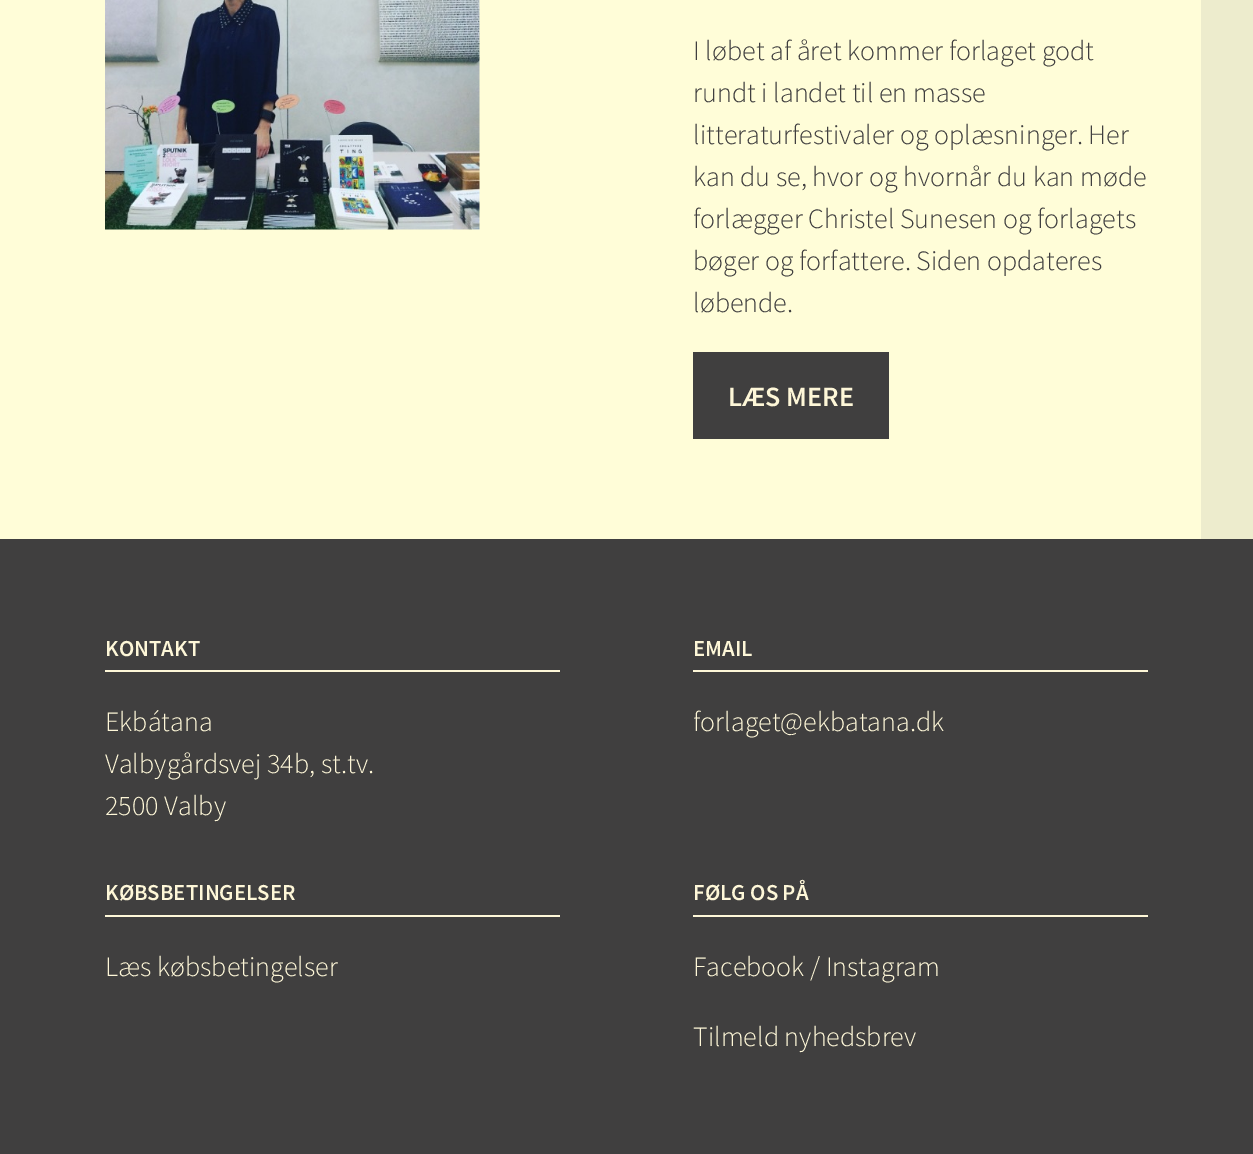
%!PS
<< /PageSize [1253 1154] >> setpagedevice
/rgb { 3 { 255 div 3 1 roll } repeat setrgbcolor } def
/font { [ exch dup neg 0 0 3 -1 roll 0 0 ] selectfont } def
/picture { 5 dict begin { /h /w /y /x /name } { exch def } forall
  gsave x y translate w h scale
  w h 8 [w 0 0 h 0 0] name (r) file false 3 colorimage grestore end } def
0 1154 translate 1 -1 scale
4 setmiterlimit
255 253 216 rgb
0 0 1253 1154 rectfill
(img/1.rgb) 105 0 375 230 picture
[
  [693 352 196 87 64 63 63]
  [1201 0 52 539 237 236 205]
  [0 539 1253 615 64 63 63]
  [105 670 455 2 254 247 216]
  [693 670 455 2 254 247 216]
  [105 915 455 2 254 247 216]
  [693 915 455 2 254 247 216]
] { aload pop rgb rectfill } forall
/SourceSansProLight-Light 28 font
64 63 63 rgb
[
  [(I løbet af året kommer forlaget godt) 693 60]
  [(rundt i landet til en masse) 693 102]
  [(litteraturfestivaler og oplæsninger. Her) 693 144]
  [(kan du se, hvor og hvornår du kan møde) 693 186]
  [(forlægger Christel Sunesen og forlagets) 693 228]
  [(bøger og forfattere. Siden opdateres) 693 270]
  [(løbende.) 693 312]
] { aload pop moveto show } forall
/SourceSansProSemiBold-SemiBold 28 font
254 247 216 rgb
728 406 moveto (LÆS MERE) show
/SourceSansProSemiBold-SemiBold 22.75 font
105 656 moveto (KONTAKT) show
/SourceSansProLight-Light 28 font
[
  [(Ekbátana) 105 731]
  [(Valbygårdsvej 34b, st.tv.) 105 773]
  [(2500 Valby) 105 815]
] { aload pop moveto show } forall
/SourceSansProSemiBold-SemiBold 22.75 font
693 656 moveto (EMAIL) show
/SourceSansProLight-Light 28 font
693 731 moveto (forlaget@ekbatana.dk) show
/SourceSansProSemiBold-SemiBold 22.75 font
105 900 moveto (KØBSBETINGELSER) show
/SourceSansProLight-Light 28 font
105 976 moveto (Læs købsbetingelser) show
/SourceSansProSemiBold-SemiBold 22.75 font
693 900 moveto (FØLG OS PÅ) show
/SourceSansProLight-Light 28 font
693 976 moveto (Facebook / Instagram) show
693 1046 moveto (Tilmeld nyhedsbrev) show
showpage
